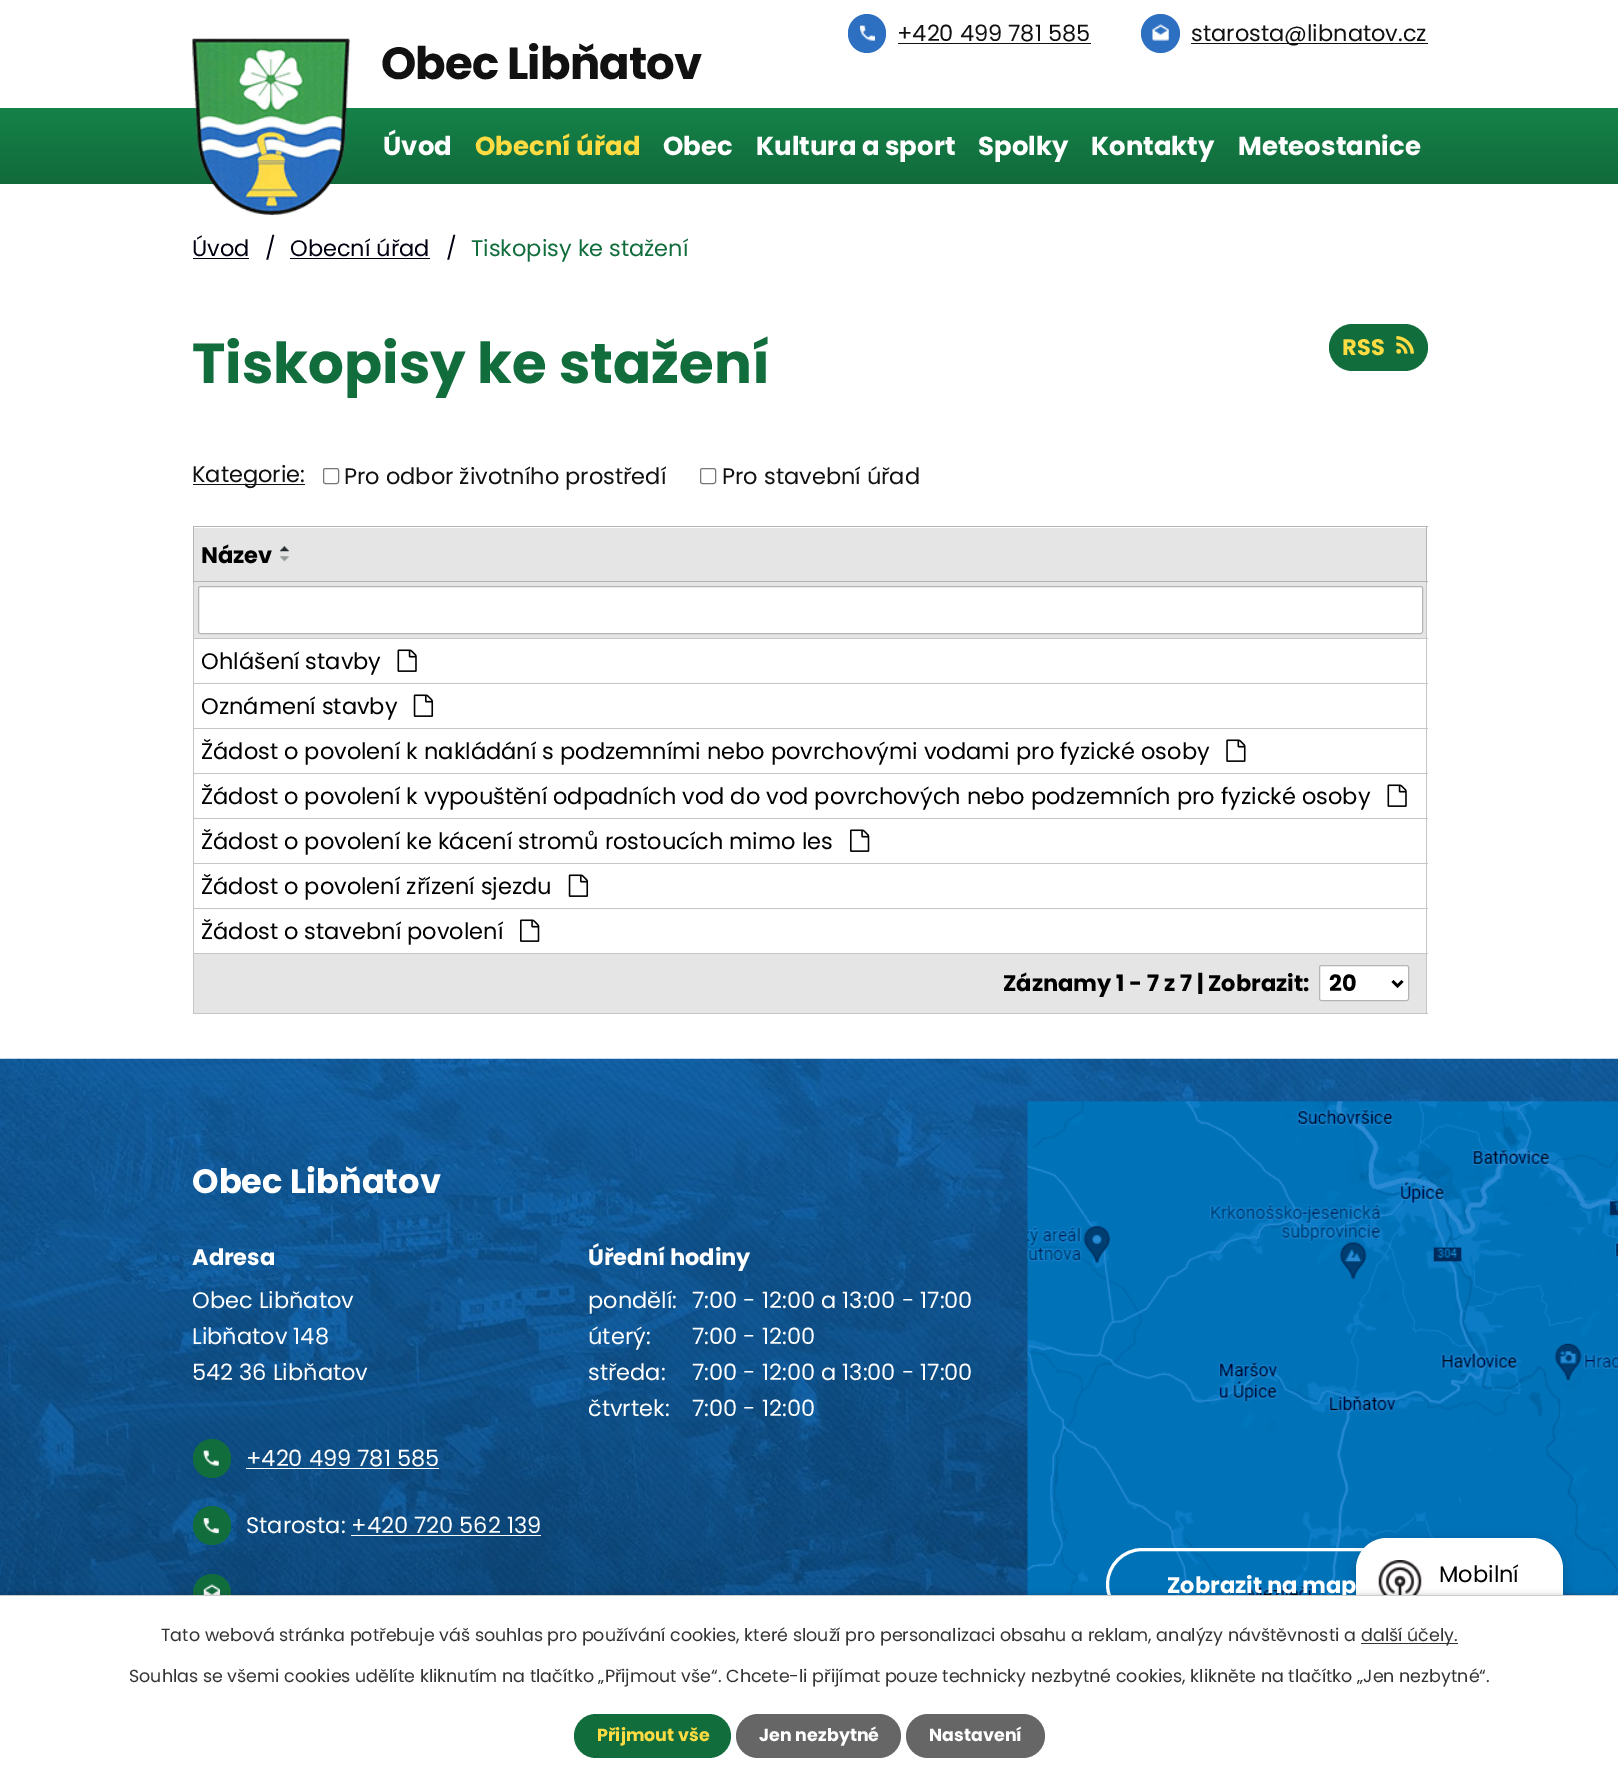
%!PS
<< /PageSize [1618 1781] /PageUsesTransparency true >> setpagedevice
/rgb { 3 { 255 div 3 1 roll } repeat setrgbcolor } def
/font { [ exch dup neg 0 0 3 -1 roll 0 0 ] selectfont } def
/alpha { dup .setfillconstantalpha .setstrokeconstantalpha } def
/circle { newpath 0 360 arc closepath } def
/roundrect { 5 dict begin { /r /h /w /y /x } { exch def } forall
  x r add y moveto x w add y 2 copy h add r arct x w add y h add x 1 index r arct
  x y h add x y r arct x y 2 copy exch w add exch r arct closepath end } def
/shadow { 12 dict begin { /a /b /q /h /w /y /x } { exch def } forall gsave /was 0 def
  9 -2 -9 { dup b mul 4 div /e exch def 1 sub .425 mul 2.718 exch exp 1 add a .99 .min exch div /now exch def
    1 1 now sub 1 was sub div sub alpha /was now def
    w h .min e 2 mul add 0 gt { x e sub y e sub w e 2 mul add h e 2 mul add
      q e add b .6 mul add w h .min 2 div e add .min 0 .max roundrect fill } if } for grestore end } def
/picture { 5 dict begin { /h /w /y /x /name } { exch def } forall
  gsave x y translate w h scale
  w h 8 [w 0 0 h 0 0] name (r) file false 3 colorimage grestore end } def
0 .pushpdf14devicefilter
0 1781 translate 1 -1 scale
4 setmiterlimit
255 255 255 rgb
0 0 1618 1781 rectfill
45 112 194 rgb
848 14 38 39 19 roundrect fill
(img/1.rgb) 860 25 15 16 picture
17 17 17 rgb
898 43 193 1 rectfill
45 112 194 rgb
1160.5 33.5 19.5 circle fill
(img/2.rgb) 1152 24 17 17 picture
17 17 17 rgb
1191 43 237 1 rectfill
gsave 0 108 moveto 1618 108 lineto 1618 184 lineto 0 184 lineto closepath clip newpath
<< /ShadingType 2 /ColorSpace /DeviceRGB /Coords [809 184 809 108] /Extend [true true] /Function << /FunctionType 2 /Domain [0 1] /C0 [0.067 0.416 0.231] /C1 [0.082 0.514 0.286] /N 1 >> >> shfill grestore
(img/3.rgb) 192 38 158 177 picture
0 0 17 rgb
193 258 56 1 rectfill
290 258 140 1 rectfill
18 109 61 rgb
1329 324 99 47 23.5 roundrect fill
(img/4.rgb) 1396 336 18 18 picture
17 17 17 rgb
193 484 112 1 rectfill
118 118 118 rgb
323.5 468.5 15 15 2 roundrect stroke
700.5 468.5 15 15 2 roundrect stroke
[
  [194 528 1232 110 229 229 229]
  [193 526 1235 1 181 181 181]
  [193 638 1235 1 197 197 197]
  [193 683 1235 1 197 197 197]
  [193 728 1235 1 197 197 197]
  [193 773 1235 1 197 197 197]
  [193 818 1235 1 197 197 197]
  [193 863 1235 1 197 197 197]
  [193 908 1235 1 197 197 197]
  [1426 908 1 46 197 197 197]
  [1426 863 1 46 197 197 197]
  [1426 818 1 46 197 197 197]
  [1426 773 1 46 197 197 197]
  [1426 728 1 46 197 197 197]
  [1426 683 1 46 197 197 197]
  [1426 581 1 103 197 197 197]
  [1426 526 1 57 181 181 181]
  [193 953 1235 1 197 197 197]
  [193 908 1 46 197 197 197]
  [193 863 1 46 197 197 197]
  [193 818 1 46 197 197 197]
  [193 773 1 46 197 197 197]
  [193 728 1 46 197 197 197]
  [193 683 1 46 197 197 197]
  [193 581 1 103 197 197 197]
  [193 581 1235 1 181 181 181]
  [193 526 1 57 181 181 181]
] { aload pop rgb rectfill } forall
(img/5.rgb) 279 546 10 6 picture
(img/6.rgb) 280 556 9 6 picture
255 255 255 rgb
198.5 586.5 1224 47 2 roundrect gsave fill grestore
181 181 181 rgb
stroke
(img/7.rgb) 397 649 20 23 picture
(img/8.rgb) 413 694 21 23 picture
(img/9.rgb) 1226 739 20 23 picture
(img/7.rgb) 1387 784 20 23 picture
(img/10.rgb) 850 829 20 23 picture
(img/8.rgb) 568 874 21 23 picture
(img/10.rgb) 520 919 20 23 picture
[
  [194 954 1232 59 229 229 229]
  [1426 953 1 61 197 197 197]
  [193 1013 1235 1 197 197 197]
  [193 953 1 61 197 197 197]
] { aload pop rgb rectfill } forall
255 255 255 rgb
1319.5 965.5 89 35 2 roundrect gsave fill grestore
181 181 181 rgb
stroke
0 0 0 rgb
2.5 setlinewidth
1392.5 981 moveto 1397.5 986 lineto 1402.5 981 lineto stroke
(img/12.rgb) 0 1058 1618 537 picture
(img/16.rgb) 1027 1101 591 494 picture
255 255 255 rgb
3 setlinewidth
1107.5 1549.5 322 70 35 roundrect stroke
0 0 0 rgb
1356 1541 207 188 31 6 0.2 shadow
255 255 255 rgb
1356 1538 207 187 31 roundrect fill
(img/11.rgb) 1378 1560 44 35 picture
18 109 61 rgb
193 1439 38 39 19 roundrect fill
(img/13.rgb) 203 1450 16 16 picture
255 255 255 rgb
246 1468 193 1 rectfill
18 109 61 rgb
193 1506 38 39 19 roundrect fill
(img/14.rgb) 203 1518 16 16 picture
255 255 255 rgb
351 1535 190 1 rectfill
18 109 61 rgb
193 1574 38 39 19 roundrect fill
(img/15.rgb) 203 1584 17 11 picture
0 0 0 rgb
0 1595 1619 186 0 3 0.2 shadow
255 255 255 rgb
0 1596 1618 185 rectfill
51 51 51 rgb
1361 1643 97 1 rectfill
18 109 61 rgb
574 1714 157 44 22 roundrect fill
102 102 102 rgb
736 1714 165 44 22 roundrect fill
906 1714 139 44 22 roundrect fill
/Poppins-Regular 22.5 font
17 17 17 rgb
897 41 moveto (+420 499 781 585) show
1191 41 moveto (starosta@libnatov.cz) show
/Poppins-Bold 45 font
381 79 moveto -0.9 0 (Obec Libňatov) ashow
/Poppins-Bold 26 font
255 255 255 rgb
383 155 moveto (Úvod) show
255 220 66 rgb
475 155 moveto (Obecní úřad) show
255 255 255 rgb
[
  [(Obec) 663 155]
  [(Kultura a sport) 756 155]
  [(Spolky) 978 155]
  [(Kontakty) 1091 155]
  [(Meteostanice) 1238 155]
] { aload pop moveto show } forall
/Poppins-Regular 22.5 font
0 0 17 rgb
[
  [(Úvod) 192 256]
  [(/) 265 256]
  [(Obecní úřad) 290 256]
  [(/) 446 256]
] { aload pop moveto show } forall
18 109 61 rgb
471 256 moveto (Tiskopisy ke stažení) show
/Poppins-Bold 56.25 font
192 383 moveto (Tiskopisy ke stažení) show
/Poppins-Bold 22.5 font
255 220 66 rgb
1342 355 moveto (RSS) show
/Poppins-Regular 22.5 font
17 17 17 rgb
[
  [(Kategorie:) 192 482]
  [(Pro odbor životního prostředí) 344 484]
  [(Pro stavební úřad) 722 484]
] { aload pop moveto show } forall
/Poppins-Bold 22.5 font
0 0 0 rgb
201 563 moveto (Název) show
/Poppins-Regular 22.5 font
[
  [(Ohlášení stavby) 201 669]
  [(Oznámení stavby) 201 714]
  [(Žádost o povolení k nakládání s podzemními nebo povrchovými vodami pro fyzické osoby) 201 759]
  [(Žádost o povolení k vypouštění odpadních vod do vod povrchových nebo podzemních pro fyzické osoby) 201 804]
  [(Žádost o povolení ke kácení stromů rostoucích mimo les) 201 849]
  [(Žádost o povolení zřízení sjezdu) 201 894]
  [(Žádost o stavební povolení) 201 939]
] { aload pop moveto show } forall
/Poppins-Bold 22.5 font
1003 991 moveto (Záznamy 1 - 7 z 7 | Zobrazit:) show
1329 991 moveto (20) show
/Poppins-Regular 22.5 font
1439 1582 moveto (Mobilní) show
/Poppins-Bold 33.75 font
255 255 255 rgb
192 1193 moveto (Obec Libňatov) show
/Poppins-Bold 22.5 font
192 1265 moveto (Adresa) show
/Poppins-Regular 22.5 font
[
  [(Obec Libňatov) 192 1308]
  [(Libňatov 148) 192 1344]
  [(542 36 Libňatov) 192 1380]
  [(+420 499 781 585) 246 1466]
  [(Starosta: +420 720 562 139) 246 1533]
] { aload pop moveto show } forall
/Poppins-Bold 22.5 font
588 1265 moveto (Úřední hodiny) show
/Poppins-Regular 22.5 font
[
  [(pondělí:) 588 1308]
  [(7:00 - 12:00 a 13:00 - 17:00) 692 1308]
  [(úterý:) 588 1344]
  [(7:00 - 12:00) 692 1344]
  [(středa:) 588 1380]
  [(7:00 - 12:00 a 13:00 - 17:00) 692 1380]
  [(čtvrtek:) 588 1416]
  [(7:00 - 12:00) 692 1416]
] { aload pop moveto show } forall
/Poppins-Bold 22.5 font
1167 1593 moveto (Zobrazit na map) show
204 204 204 rgb
0 1595 1618 1 rectfill
/Poppins-Regular 17.5 font
51 51 51 rgb
[
  [(Tato webová stránka potřebuje váš souhlas pro používání cookies, které slouží pro personalizaci obsahu a reklam, analýzy návštěvnosti a) 161 1641]
  [(další účely.) 1361 1641]
  [(Souhlas se všemi cookies udělíte kliknutím na tlačítko „Přijmout vše“. Chcete-li přijímat pouze technicky nezbytné cookies, klikněte na tlačítko „Jen nezbytné“.) 129 1682]
] { aload pop moveto show } forall
/Poppins-Bold 17.5 font
255 220 66 rgb
597 1741 moveto (Přijmout vše) show
255 255 255 rgb
759 1741 moveto (Jen nezbytné) show
929 1741 moveto (Nastavení) show
.poppdf14devicefilter showpage
